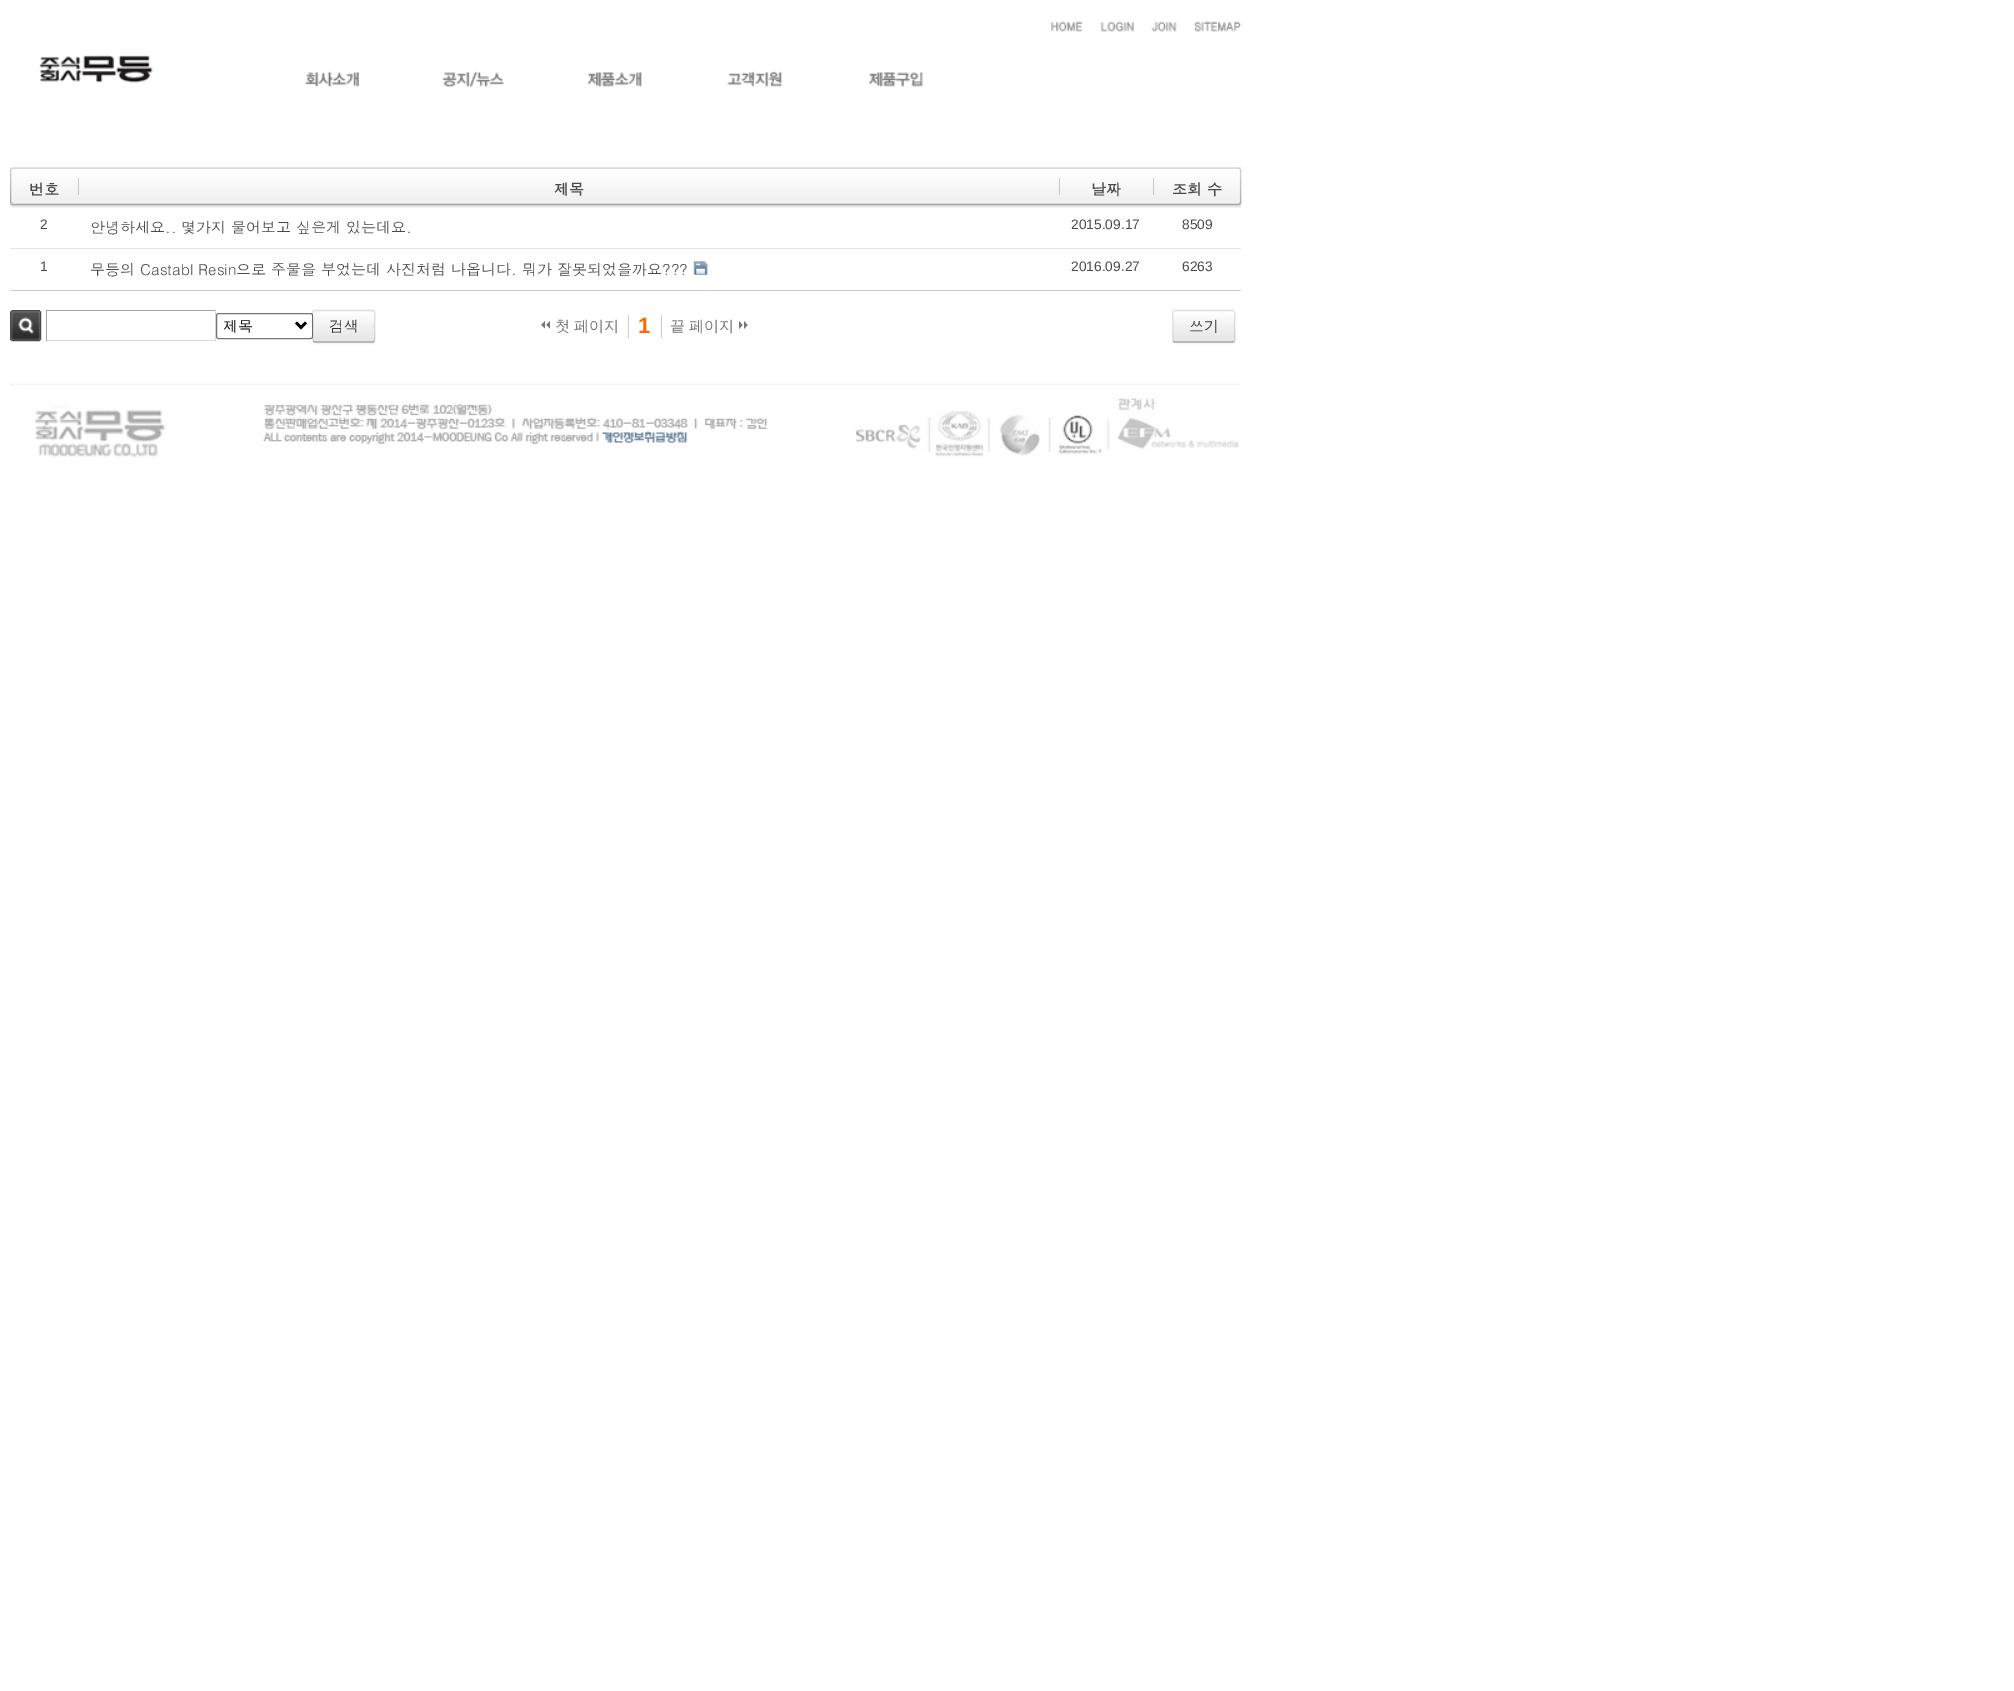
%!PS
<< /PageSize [2014 1691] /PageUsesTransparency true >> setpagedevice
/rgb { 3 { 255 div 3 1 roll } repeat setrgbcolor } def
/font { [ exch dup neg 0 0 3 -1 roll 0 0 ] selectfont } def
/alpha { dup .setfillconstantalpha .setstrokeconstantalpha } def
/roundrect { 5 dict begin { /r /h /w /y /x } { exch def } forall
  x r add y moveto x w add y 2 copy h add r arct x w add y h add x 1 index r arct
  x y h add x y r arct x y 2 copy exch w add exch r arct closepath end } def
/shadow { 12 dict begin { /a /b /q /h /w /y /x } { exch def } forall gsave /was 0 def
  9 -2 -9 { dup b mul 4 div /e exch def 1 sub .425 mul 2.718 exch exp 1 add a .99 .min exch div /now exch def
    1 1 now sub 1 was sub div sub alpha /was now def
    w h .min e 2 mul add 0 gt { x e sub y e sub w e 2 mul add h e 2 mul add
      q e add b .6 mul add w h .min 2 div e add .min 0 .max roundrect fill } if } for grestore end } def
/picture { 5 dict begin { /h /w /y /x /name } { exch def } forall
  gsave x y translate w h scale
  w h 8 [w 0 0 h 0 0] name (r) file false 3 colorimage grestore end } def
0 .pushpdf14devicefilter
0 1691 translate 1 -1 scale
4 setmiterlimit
255 255 255 rgb
0 0 2014 1691 rectfill
(img/1.rgb) 1051 21 32 11 picture
(img/2.rgb) 1101 21 33 11 picture
(img/3.rgb) 1151 21 26 11 picture
(img/4.rgb) 1194 21 47 11 picture
(img/5.rgb) 39 55 114 28 picture
(img/6.rgb) 305 71 54 16 picture
(img/7.rgb) 442 71 62 17 picture
(img/8.rgb) 587 71 55 16 picture
(img/9.rgb) 727 71 56 16 picture
(img/10.rgb) 868 71 55 16 picture
(img/11.rgb) 10 167 1232 41 picture
(img/12.rgb) 1238 167 4 40 picture
[
  [10 290 1231 1 205 205 205]
  [78 178 1 17 199 199 199]
  [1059 178 1 17 199 199 199]
  [1153 178 1 17 199 199 199]
  [10 248 1231 1 230 230 230]
] { aload pop rgb rectfill } forall
(img/13.rgb) 693 261 15 14 picture
(img/14.rgb) 10 310 32 32 picture
[
  [46 310 170 1 166 166 166]
  [215 310 1 31 216 216 216]
  [46 340 170 1 216 216 216]
  [46 310 1 31 166 166 166]
] { aload pop rgb rectfill } forall
118 118 118 rgb
216.5 313.5 96 25 2 roundrect stroke
0 0 0 rgb
2.5 setlinewidth
296 322.5 moveto 301 327.5 lineto 306 322.5 lineto stroke
313 311 62 33 2.5 1 0.05 shadow
245 245 245 rgb
313 310 62 33 2.5 roundrect fill
gsave 313 311 moveto 375 311 lineto 375 341 lineto 313 341 lineto closepath clip newpath
<< /ShadingType 2 /ColorSpace /DeviceRGB /Coords [344 311 344 341] /Extend [true true] /Function << /FunctionType 2 /Domain [0 1] /C0 [1 1 1] /C1 [0.902 0.902 0.902] /N 1 >> >> shfill grestore
162 162 162 rgb
1.2 setlinewidth
374 341.5 moveto 372.5 342 lineto 315 342 lineto 313.5 341.5 lineto stroke
0.1 alpha
0 0 0 rgb
313.5 341.5 moveto 312 340 313 328.5 313 326 curveto 313 308.5 309 310.5 324.5 310.5 curveto 363 310.5 lineto 378.5 310.5 374.5 308.5 374.5 326 curveto 374.5 328.5 375.5 340 374 341.5 curveto stroke
1 alpha
118 118 118 rgb
545 321 moveto 545 329 lineto 541 325 lineto closepath fill
255 255 255 rgb
545 329 moveto 541 329 lineto 541 325 lineto closepath fill
118 118 118 rgb
550 321 moveto 550 329 lineto 546 325 lineto closepath fill
255 255 255 rgb
550 329 moveto 546 329 lineto 546 325 lineto closepath fill
204 204 204 rgb
661 315 1 23 rectfill
628 315 1 23 rectfill
118 118 118 rgb
739 329 moveto 739 321 lineto 742.5 325 lineto closepath 744 329 moveto 744 321 lineto 747.5 325 lineto closepath fill
0 0 0 rgb
1173 311 62 33 2.5 1 0.05 shadow
245 245 245 rgb
1173 310 62 33 2.5 roundrect fill
gsave 1173 311 moveto 1235 311 lineto 1235 341 lineto 1173 341 lineto closepath clip newpath
<< /ShadingType 2 /ColorSpace /DeviceRGB /Coords [1204 311 1204 341] /Extend [true true] /Function << /FunctionType 2 /Domain [0 1] /C0 [1 1 1] /C1 [0.902 0.902 0.902] /N 1 >> >> shfill grestore
162 162 162 rgb
1234 341.5 moveto 1232.5 342 lineto 1175 342 lineto 1173.5 341.5 lineto stroke
0.1 alpha
0 0 0 rgb
1173.5 341.5 moveto 1172 340 1173 328.5 1173 326 curveto 1173 308.5 1169 310.5 1184.5 310.5 curveto 1223 310.5 lineto 1238.5 310.5 1234.5 308.5 1234.5 326 curveto 1234.5 328.5 1235.5 340 1234 341.5 curveto stroke
1 alpha
(img/15.rgb) 10 383 1231 75 picture
/Dotum-Bold 15 font
74 74 74 rgb
[
  [(번호) 29 195]
  [(제목) 554 195]
  [(날짜) 1091 195]
  [(조회 수) 1172 195]
] { aload pop moveto show } forall
/LiberationSans-Regular 13.75 font
40 229 moveto (2) show
/Dotum-Regular 15 font
90 233 moveto (안녕하세요.. 몇가지 물어보고 싶은게 있는데요.) show
/LiberationSans-Regular 13.75 font
[
  [(2015.09.17) 1071 229]
  [(8509) 1182 229]
  [(1) 40 271]
] { aload pop moveto show } forall
/Dotum-Regular 15 font
90 275 moveto (무등의 Castabl Resin으로 주물을 부었는데 사진처럼 나옵니다. 뭐가 잘못되었을까요???) show
/LiberationSans-Regular 13.75 font
1071 271 moveto (2016.09.27) show
1182 271 moveto (6263) show
/Dotum-Regular 15 font
0 0 0 rgb
223 332 moveto (제목) show
51 51 51 rgb
329 332 moveto (검색) show
/WenQuanYiZenHei-Medium 15 font
118 118 118 rgb
555 331 moveto (첫 페이지) show
/LiberationSans-Bold 22 font
255 102 0 rgb
638 333 moveto (1) show
/WenQuanYiZenHei-Medium 15 font
118 118 118 rgb
670 331 moveto (끝 페이지) show
/Dotum-Regular 15 font
51 51 51 rgb
1189 332 moveto (쓰기) show
.poppdf14devicefilter showpage
